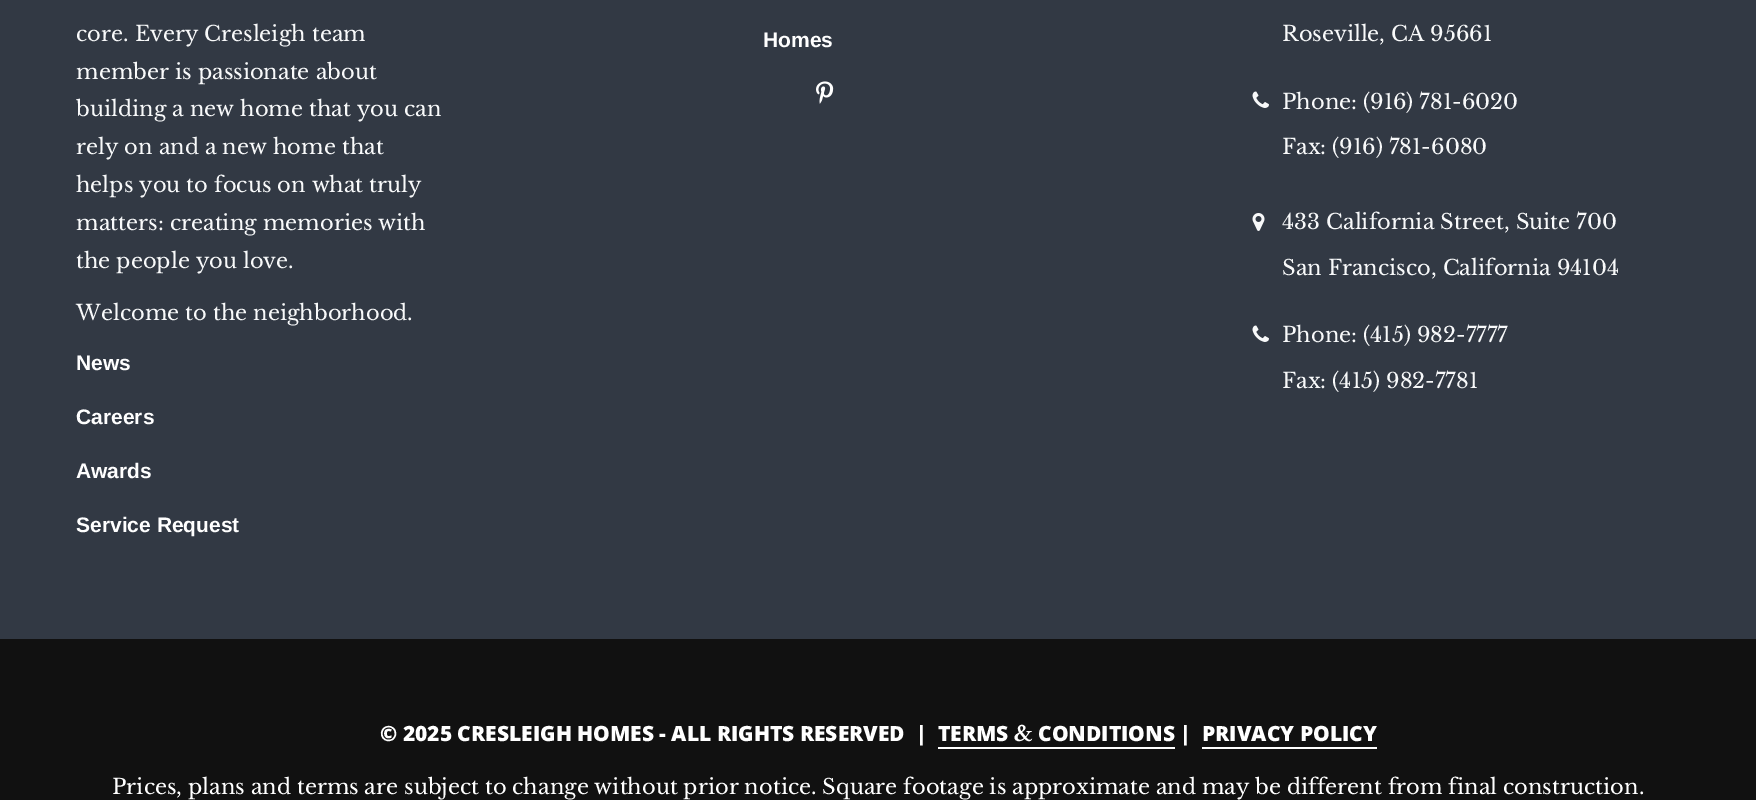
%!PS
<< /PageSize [1756 800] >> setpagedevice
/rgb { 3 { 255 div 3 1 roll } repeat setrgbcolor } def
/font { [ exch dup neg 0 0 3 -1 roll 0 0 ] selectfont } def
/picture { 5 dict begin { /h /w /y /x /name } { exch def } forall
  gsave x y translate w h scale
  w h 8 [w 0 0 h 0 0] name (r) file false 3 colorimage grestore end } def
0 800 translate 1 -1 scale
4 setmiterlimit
50 57 68 rgb
0 0 1756 800 rectfill
(img/1.rgb) 816 81 18 23 picture
(img/2.rgb) 1252 91 17 17 picture
(img/3.rgb) 1252 213 13 18 picture
(img/2.rgb) 1252 325 17 17 picture
[
  [0 639 1756 161 17 17 17]
  [938 747 237 2 255 255 255]
  [1202 747 175 2 255 255 255]
] { aload pop rgb rectfill } forall
/LibreBaskerville-Regular 21 font
248 249 250 rgb
[
  [(core. Every Cresleigh team) 76 41]
  [(member is passionate about) 76 79]
  [(building a new home that you can) 76 116]
  [(rely on and a new home that) 76 154]
  [(helps you to focus on what truly) 76 192]
  [(matters: creating memories with) 76 230]
  [(the people you love.) 76 268]
  [(Welcome to the neighborhood.) 76 320]
] { aload pop moveto show } forall
/LiberationSans-Bold 21 font
255 255 255 rgb
[
  [(News) 76 370]
  [(Careers) 76 424]
  [(Awards) 76 478]
  [(Service Request) 76 532]
  [(Homes) 763 47]
] { aload pop moveto show } forall
/LibreBaskerville-Regular 21 font
248 249 250 rgb
[
  [(Roseville, CA 95661) 1282 41]
  [(Phone: \(916\) 781-6020) 1282 109]
  [(Fax: \(916\) 781-6080) 1282 154]
  [(433 California Street, Suite 700) 1282 229]
  [(San Francisco, California 94104) 1282 275]
  [(Phone: \(415\) 982-7777) 1282 342]
  [(Fax: \(415\) 982-7781) 1282 388]
] { aload pop moveto show } forall
/OpenSans-ExtraBold 21 font
255 255 255 rgb
380 741 moveto (© 2025 CRESLEIGH HOMES - ALL RIGHTS RESERVED  |) show
938 741 moveto (TERMS) show
/LibreBaskerville-Bold 21 font
1014 741 moveto (&) show
/OpenSans-ExtraBold 21 font
1038 741 moveto (CONDITIONS |) show
1202 741 moveto (PRIVACY POLICY) show
/LibreBaskerville-Regular 21 font
112 794 moveto -0.2 0 32 (Prices, plans and terms are subject to change without prior notice. Square footage is approximate and may be different from final construction.) widthshow
showpage
